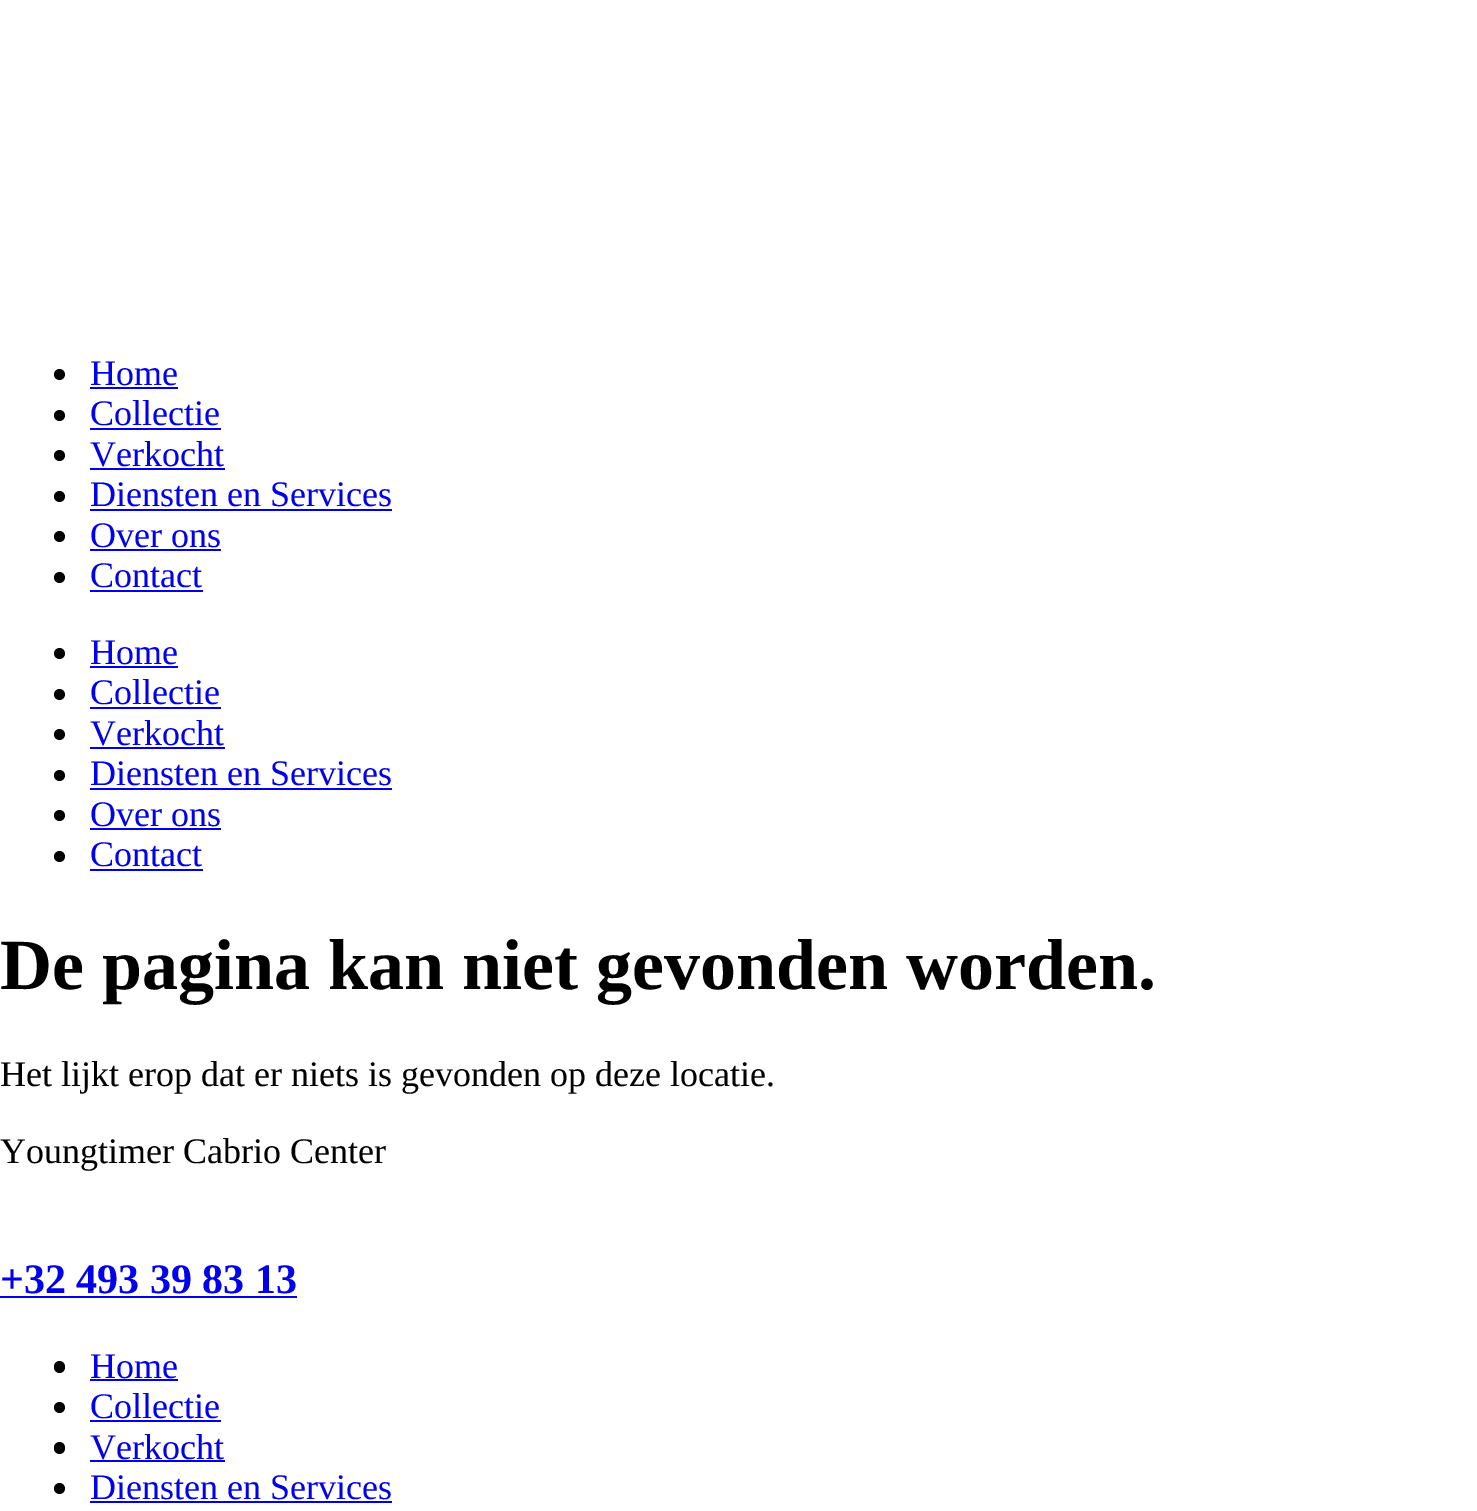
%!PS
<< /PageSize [1477 1511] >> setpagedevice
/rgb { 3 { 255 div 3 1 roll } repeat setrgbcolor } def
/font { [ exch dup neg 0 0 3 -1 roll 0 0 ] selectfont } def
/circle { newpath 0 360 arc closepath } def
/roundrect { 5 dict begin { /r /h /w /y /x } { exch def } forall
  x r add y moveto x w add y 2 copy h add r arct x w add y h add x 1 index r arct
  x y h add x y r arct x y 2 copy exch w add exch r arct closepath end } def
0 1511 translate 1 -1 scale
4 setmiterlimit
255 255 255 rgb
0 0 1477 1511 rectfill
0 0 0 rgb
59.5 374.5 5.5 circle fill
0 0 238 rgb
90 387 88 2 rectfill
0 0 0 rgb
59.5 415.5 5.5 circle fill
0 0 238 rgb
90 428 131 2 rectfill
0 0 0 rgb
59.5 455.5 5.5 circle fill
0 0 238 rgb
90 468 135 2 rectfill
0 0 0 rgb
59.5 496.5 5.5 circle fill
0 0 238 rgb
90 509 302 2 rectfill
0 0 0 rgb
59.5 536.5 5.5 circle fill
0 0 238 rgb
90 549 131 2 rectfill
0 0 0 rgb
59.5 577.5 5.5 circle fill
0 0 238 rgb
90 590 113 2 rectfill
0 0 0 rgb
59.5 653.5 5.5 circle fill
0 0 238 rgb
90 666 88 2 rectfill
0 0 0 rgb
59.5 694.5 5.5 circle fill
0 0 238 rgb
90 707 131 2 rectfill
0 0 0 rgb
59.5 734.5 5.5 circle fill
0 0 238 rgb
90 747 135 2 rectfill
0 0 0 rgb
59.5 775.5 5.5 circle fill
0 0 238 rgb
90 788 302 2 rectfill
0 0 0 rgb
59.5 815.5 5.5 circle fill
0 0 238 rgb
90 828 131 2 rectfill
0 0 0 rgb
59.5 856.5 5.5 circle fill
0 0 238 rgb
90 869 113 2 rectfill
0 1296 297 2 rectfill
0 0 0 rgb
54 1361 11 12 5.5 roundrect fill
0 0 238 rgb
90 1379 88 2 rectfill
0 0 0 rgb
59.5 1407.5 5.5 circle fill
0 0 238 rgb
90 1420 131 2 rectfill
0 0 0 rgb
54 1442 11 12 5.5 roundrect fill
0 0 238 rgb
90 1460 135 2 rectfill
0 0 0 rgb
59.5 1488.5 5.5 circle fill
0 0 238 rgb
90 1501 302 2 rectfill
/LiberationSerif-Regular 36 font
[
  [(Home) 90 385]
  [(Collectie) 90 425]
  [(Verkocht) 90 466]
  [(Diensten en Services) 90 506]
  [(Over ons) 90 547]
  [(Contact) 90 587]
  [(Home) 90 664]
  [(Collectie) 90 704]
  [(Verkocht) 90 745]
  [(Diensten en Services) 90 785]
  [(Over ons) 90 826]
  [(Contact) 90 866]
] { aload pop moveto show } forall
/LiberationSerif-Bold 72 font
0 0 0 rgb
0 989 moveto (De pagina kan niet gevonden worden.) show
/LiberationSerif-Regular 36 font
0 1086 moveto (Het lijkt erop dat er niets is gevonden op deze locatie.) show
0 1163 moveto (Youngtimer Cabrio Center) show
/LiberationSerif-Bold 42 font
0 0 238 rgb
0 1293 moveto (+32 493 39 83 13) show
/LiberationSerif-Regular 36 font
[
  [(Home) 90 1378]
  [(Collectie) 90 1418]
  [(Verkocht) 90 1459]
  [(Diensten en Services) 90 1499]
] { aload pop moveto show } forall
showpage
